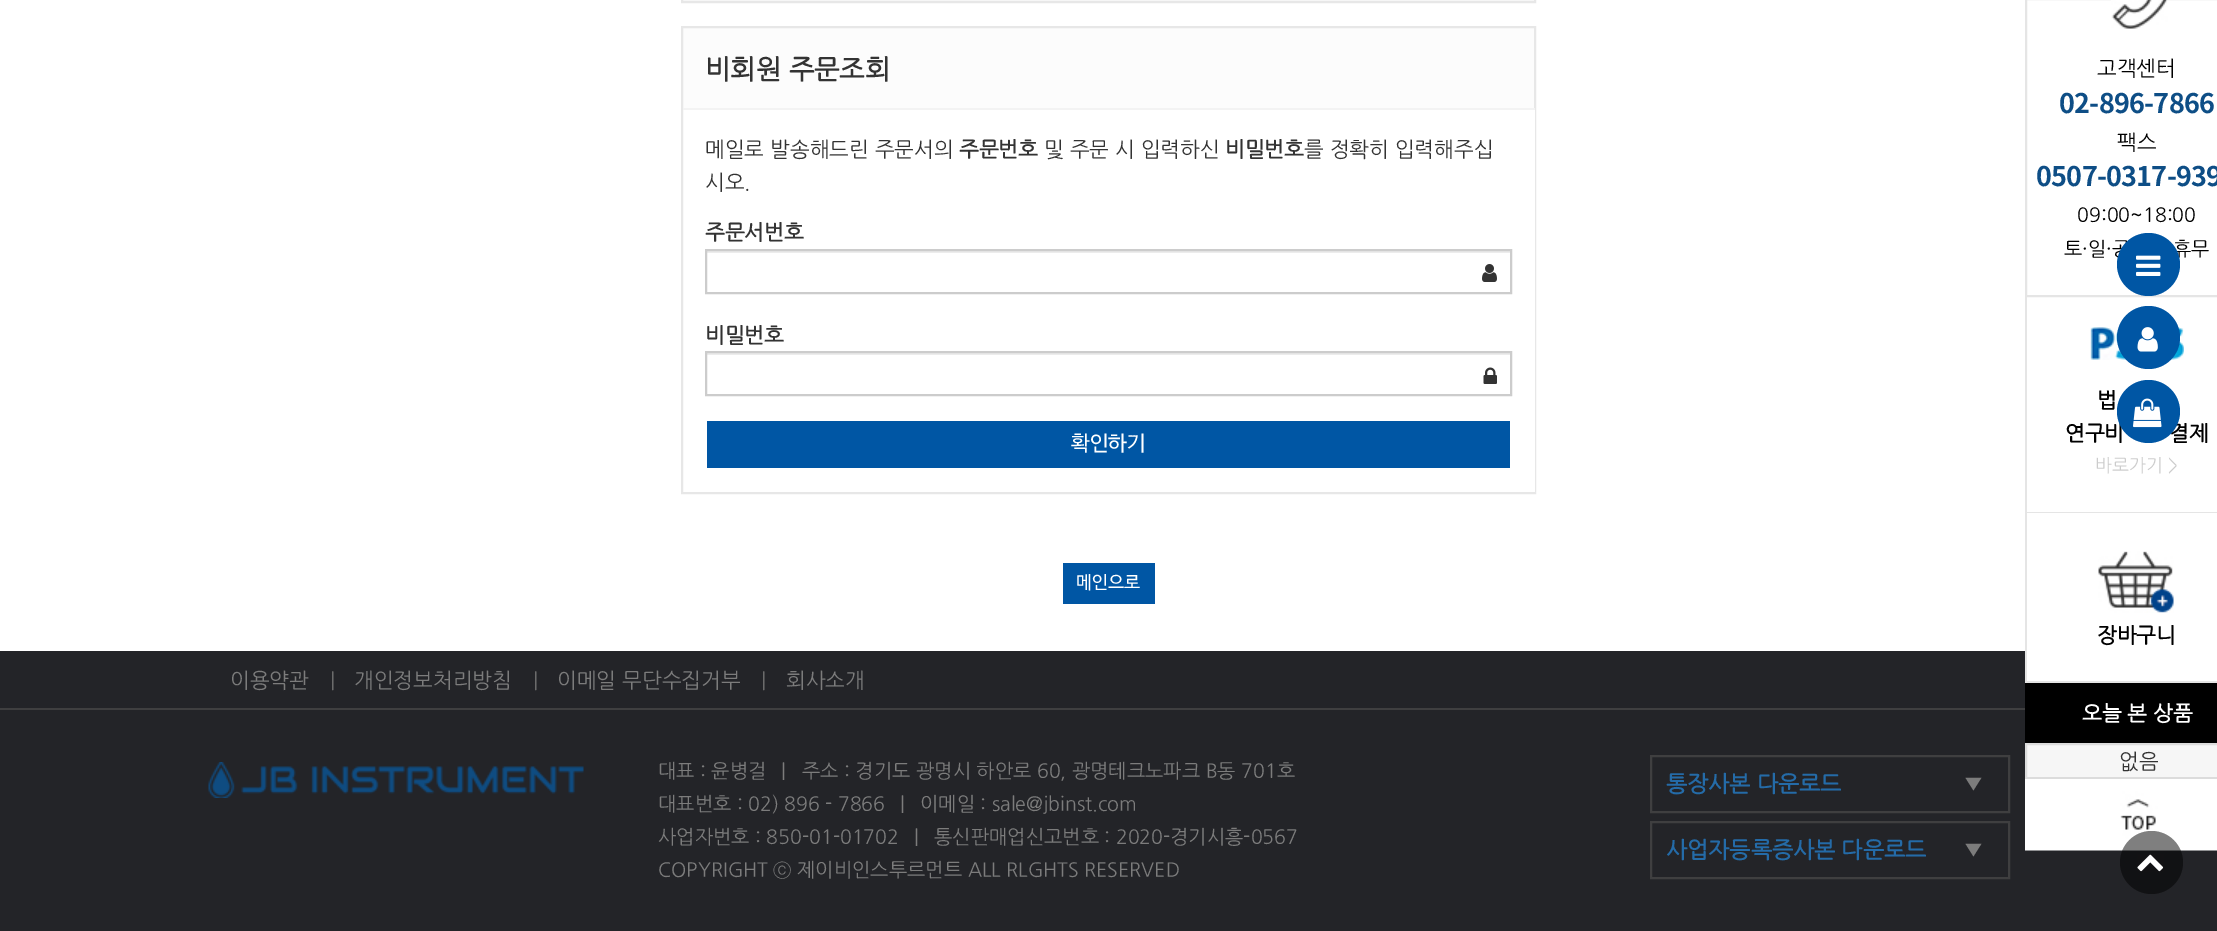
%!PS
<< /PageSize [2217 931] /PageUsesTransparency true >> setpagedevice
/rgb { 3 { 255 div 3 1 roll } repeat setrgbcolor } def
/font { [ exch dup neg 0 0 3 -1 roll 0 0 ] selectfont } def
/alpha { dup .setfillconstantalpha .setstrokeconstantalpha } def
/circle { newpath 0 360 arc closepath } def
/picture { 5 dict begin { /h /w /y /x /name } { exch def } forall
  gsave x y translate w h scale
  w h 8 [w 0 0 h 0 0] name (r) file false 3 colorimage grestore end } def
0 .pushpdf14devicefilter
0 931 translate 1 -1 scale
4 setmiterlimit
255 255 255 rgb
0 0 2217 931 rectfill
252 252 252 rgb
682 -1 moveto 1535 -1 lineto 1535 2 lineto 682 2 lineto closepath gsave fill grestore
231 231 231 rgb
2 setlinewidth
stroke
252 252 252 rgb
683 28 851 80 rectfill
231 231 231 rgb
682 27 853 466 rectstroke
[
  [683 108 852 2 243 243 243]
  [1534 110 1 382 255 255 255]
  [707 251 804 2 236 236 236]
] { aload pop rgb rectfill } forall
204 204 204 rgb
706 250 805 43 rectstroke
(img/1.rgb) 1482 264 15 18 picture
236 236 236 rgb
707 353 804 2 rectfill
204 204 204 rgb
706 352 805 43 rectstroke
(img/2.rgb) 1483 367 14 17 picture
0 86 164 rgb
707 421 803 47 rectfill
1063 563 92 41 rectfill
229 229 229 rgb
2026 -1 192 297 rectstroke
(img/3.rgb) 2111 0 57 29 picture
2025 512 192 1 rectfill
2025 297 2 216 rectfill
(img/4.rgb) 2090 327 94 33 picture
2025 681 192 2 rectfill
2025 513 2 170 rectfill
(img/5.rgb) 2098 551 76 62 picture
35 36 40 rgb
0 710 2217 221 rectfill
0 0 0 rgb
2025 683 192 60 rectfill
246 246 246 rgb
2026 744 moveto 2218 744 lineto 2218 778 lineto 2026 778 lineto closepath gsave fill grestore
220 220 220 rgb
stroke
(img/6.rgb) 2025 779 192 72 picture
35 36 40 rgb
0 651 2025 57 rectfill
63 63 64 rgb
0 708 2025 2 rectfill
(img/7.rgb) 208 762 376 36 picture
1651 756 358 56 rectstroke
1651 822 358 56 rectstroke
0 86 164 rgb
2148.5 337.5 31.5 circle fill
(img/9.rgb) 2137 327 21 25 picture
0.5 alpha
0 0 0 rgb
2151.5 862.5 31.5 circle fill
1 alpha
(img/11.rgb) 2137 854 27 18 picture
/NanumGothic-Bold 27 font
51 51 51 rgb
705 78 moveto (비회원 주문조회) show
/NanumGothic-Regular 21 font
705 156 moveto (메일로 발송해드린 주문서의) show
/NanumGothic-Bold 21 font
959 156 moveto (주문번호) show
/NanumGothic-Regular 21 font
1044 156 moveto (및 주문 시 입력하신) show
/NanumGothic-Bold 21 font
1225 156 moveto (비밀번호) show
/NanumGothic-Regular 21 font
1304 156 moveto (를 정확히 입력해주십) show
705 189 moveto (시오.) show
/NanumGothic-Bold 21 font
705 239 moveto (주문서번호) show
705 342 moveto (비밀번호) show
/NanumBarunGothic-Regular 21 font
255 255 255 rgb
1071 450 moveto (확인하기) show
/NanumBarunGothic-Regular 18 font
1076 588 moveto (메인으로) show
/NanumGothic-Regular 21 font
0 0 0 rgb
2097 75 moveto (고객센터) show
/NotoSansKR-Bold 27 font
14 78 134 rgb
2059 113 moveto -0.75 0 (02-896-7866) ashow
/NanumGothic-Regular 21 font
0 0 0 rgb
2117 149 moveto (팩스) show
/NotoSansKR-Bold 27 font
14 78 134 rgb
2036 186 moveto -0.75 0 (0507-0317-939) ashow
/NanumGothic-Regular 19.5 font
0 0 0 rgb
[
  [(09:00~18:00) 2077 221]
  [(토·일·공) 2064 255]
  [(휴무) 2173 255]
] { aload pop moveto show } forall
/NanumGothic-Bold 21 font
[
  [(법) 2097 407]
  [(연구비) 2065 440]
  [(결제) 2169 440]
] { aload pop moveto show } forall
/NanumGothic-Regular 18 font
204 204 204 rgb
2095 471 moveto (바로가기 >) show
/NanumGothic-Bold 21 font
0 0 0 rgb
2097 642 moveto (장바구니) show
255 255 255 rgb
2082 720 moveto (오늘 본 상품) show
/NanumGothic-Regular 21 font
51 51 51 rgb
2119 768 moveto (없음) show
124 124 124 rgb
230 687 moveto (이용약관) show
107 107 107 rgb
330 687 moveto (|) show
124 124 124 rgb
354 687 moveto (개인정보처리방침) show
107 107 107 rgb
533 687 moveto (|) show
124 124 124 rgb
557 687 moveto (이메일 무단수집거부) show
107 107 107 rgb
761 687 moveto (|) show
124 124 124 rgb
786 687 moveto (회사소개) show
/NanumGothic-Regular 19.5 font
[
  [(대표 : 윤병걸) 658 777]
  [(|) 781 777]
  [(주소 : 경기도 광명시 하안로 60, 광명테크노파크 B동 701호) 802 777]
  [(대표번호 : 02\) 896 - 7866) 658 810]
  [(|) 900 810]
  [(이메일 : sale@jbinst.com) 920 810]
  [(사업자번호 : 850-01-01702) 658 843]
  [(|) 914 843]
  [(통신판매업신고번호 : 2020-경기시흥-0567) 934 843]
  [(COPYRIGHT ⓒ 제이비인스투르먼트 ALL RLGHTS RESERVED) 658 876]
] { aload pop moveto show } forall
/NanumGothic-Bold 22.5 font
36 107 168 rgb
1666 791 moveto (통장사본 다운로드) show
/NanumGothic-Bold 19.5 font
124 124 124 rgb
1964 790 moveto (▼) show
/NanumGothic-Bold 22.5 font
36 107 168 rgb
1666 857 moveto (사업자등록증사본 다운로드) show
/NanumGothic-Bold 19.5 font
124 124 124 rgb
1964 856 moveto (▼) show
0 86 164 rgb
2148.5 264.5 31.5 circle fill
(img/8.rgb) 2136 255 25 21 picture
2148.5 411.5 31.5 circle fill
(img/10.rgb) 2133 398 29 30 picture
.poppdf14devicefilter showpage
